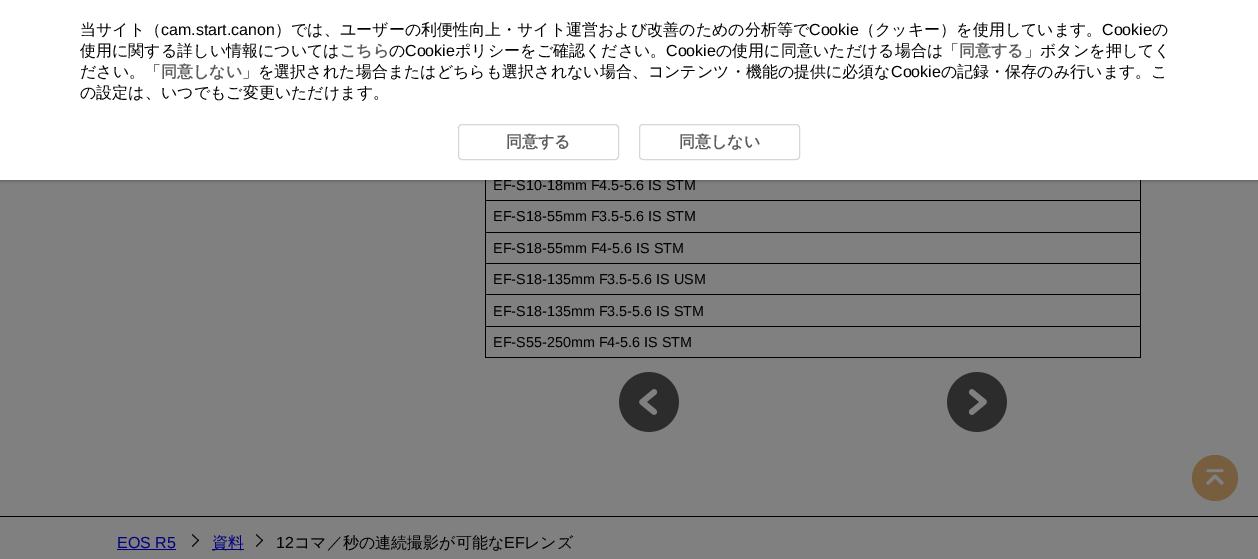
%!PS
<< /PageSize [1258 559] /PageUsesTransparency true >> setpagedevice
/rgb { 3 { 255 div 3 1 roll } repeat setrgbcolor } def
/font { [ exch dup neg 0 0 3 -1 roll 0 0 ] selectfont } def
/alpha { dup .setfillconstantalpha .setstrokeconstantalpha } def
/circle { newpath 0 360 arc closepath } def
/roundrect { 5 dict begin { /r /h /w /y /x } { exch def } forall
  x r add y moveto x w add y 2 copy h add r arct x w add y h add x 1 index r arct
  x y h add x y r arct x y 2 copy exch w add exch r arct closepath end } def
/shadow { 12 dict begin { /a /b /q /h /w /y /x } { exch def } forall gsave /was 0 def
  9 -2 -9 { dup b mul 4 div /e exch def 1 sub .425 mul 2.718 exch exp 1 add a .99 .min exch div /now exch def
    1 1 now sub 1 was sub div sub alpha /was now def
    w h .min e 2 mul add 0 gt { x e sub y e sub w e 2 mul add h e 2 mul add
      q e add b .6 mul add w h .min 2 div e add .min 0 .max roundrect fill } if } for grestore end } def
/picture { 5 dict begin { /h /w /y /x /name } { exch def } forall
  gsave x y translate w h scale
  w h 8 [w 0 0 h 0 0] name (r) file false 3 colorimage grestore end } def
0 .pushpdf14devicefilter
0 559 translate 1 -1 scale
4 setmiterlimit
128 128 128 rgb
0 0 1258 559 rectfill
[
  [485 200 656 1 0 0 0]
  [485 232 656 1 0 0 0]
  [485 263 656 1 0 0 0]
  [485 294 656 1 0 0 0]
  [485 326 656 1 0 0 0]
  [1140 326 1 32 0 0 0]
  [1140 294 1 33 0 0 0]
  [1140 263 1 32 0 0 0]
  [1140 232 1 32 0 0 0]
  [1140 180 1 53 0 0 0]
  [485 357 656 1 0 0 0]
  [485 326 1 32 0 0 0]
  [485 294 1 33 0 0 0]
  [485 263 1 32 0 0 0]
  [485 232 1 32 0 0 0]
  [485 180 1 53 0 0 0]
] { aload pop rgb rectfill } forall
0 0 1258 180 0 2 0.4 shadow
(img/1.rgb) 619 372 60 60 picture
(img/2.rgb) 947 372 60 60 picture
0 516 1258 1 rectfill
118 94 62 rgb
1215 478 23 circle fill
(img/3.rgb) 1206 469 18 16 picture
0 0 128 rgb
117 549 59 1 rectfill
0 0 0 rgb
192.5 534 moveto 199 540.5 lineto 198.5 541 lineto 192 535 lineto closepath fill
198.5 539.5 moveto 199 540.5 lineto 192.5 547 lineto 192 546 lineto closepath fill
0 0 128 rgb
212 549 32 1 rectfill
0 0 0 rgb
256.5 534 moveto 263 540.5 lineto 262.5 541 lineto 256 535 lineto closepath fill
262.5 539.5 moveto 263 540.5 lineto 256.5 547 lineto 256 546 lineto closepath fill
/LiberationSans-Regular 14.4 font
493 190 moveto (EF-S10-18mm F4.5-5.6 IS STM) show
255 255 255 rgb
0 0 1258 180 rectfill
214 214 214 rgb
639.5 124.5 160 35 3.5 roundrect stroke
/WenQuanYiZenHei-Bold 16 font
92 92 92 rgb
679 147 moveto (同意しない) show
214 214 214 rgb
458.5 124.5 160 35 3.5 roundrect stroke
92 92 92 rgb
[
  [(同意する) 506 147]
  [(同意しない) 161 77]
  [(同意する) 959 56]
  [(こちら) 340 56]
] { aload pop moveto show } forall
/WenQuanYiZenHei-Medium 16 font
0 0 0 rgb
80 98 moveto (の設定は、いつでもご変更いただけます。) show
941 77 moveto (の記録・保存のみ行います。こ) show
/LiberationSans-Regular 16 font
891 77 moveto (Cookie) show
/WenQuanYiZenHei-Medium 16 font
[
  [(」を選択された場合またはどちらも選択されない場合、コンテンツ・機能の提供に必須な) 242 77]
  [(ださい。「) 80 77]
  [(」ボタンを押してく) 1024 56]
  [(の使用に同意いただける場合は「) 716 56]
] { aload pop moveto show } forall
/LiberationSans-Regular 16 font
666 56 moveto (Cookie) show
/WenQuanYiZenHei-Medium 16 font
455 56 moveto (ポリシーをご確認ください。) show
/LiberationSans-Regular 16 font
405 56 moveto (Cookie) show
/WenQuanYiZenHei-Medium 16 font
[
  [(の) 389 56]
  [(使用に関する詳しい情報については) 80 56]
  [(の) 1152 35]
] { aload pop moveto show } forall
/LiberationSans-Regular 16 font
1102 35 moveto (Cookie) show
/WenQuanYiZenHei-Medium 16 font
859 35 moveto (（クッキー）を使用しています。) show
/LiberationSans-Regular 16 font
809 35 moveto (Cookie) show
/WenQuanYiZenHei-Medium 16 font
275 35 moveto (）では、ユーザーの利便性向上・サイト運営および改善のための分析等で) show
/LiberationSans-Regular 16 font
161 35 moveto (cam.start.canon) show
/WenQuanYiZenHei-Medium 16 font
80 35 moveto (当サイト（) show
/LiberationSans-Regular 14.4 font
[
  [(EF-S18-55mm F3.5-5.6 IS STM) 493 221]
  [(EF-S18-55mm F4-5.6 IS STM) 493 253]
  [(EF-S18-135mm F3.5-5.6 IS USM) 493 284]
  [(EF-S18-135mm F3.5-5.6 IS STM) 493 316]
  [(EF-S55-250mm F4-5.6 IS STM) 493 347]
] { aload pop moveto show } forall
/LiberationSans-Regular 16 font
0 0 128 rgb
117 548 moveto (EOS R5) show
/WenQuanYiZenHei-Medium 16 font
212 548 moveto (資料) show
/LiberationSans-Regular 16 font
0 0 0 rgb
276 548 moveto (12) show
/WenQuanYiZenHei-Medium 16 font
294 548 moveto (コマ／秒の連続撮影が可能な) show
/LiberationSans-Regular 16 font
504 548 moveto (EF) show
/WenQuanYiZenHei-Medium 16 font
524 548 moveto (レンズ) show
.poppdf14devicefilter showpage
